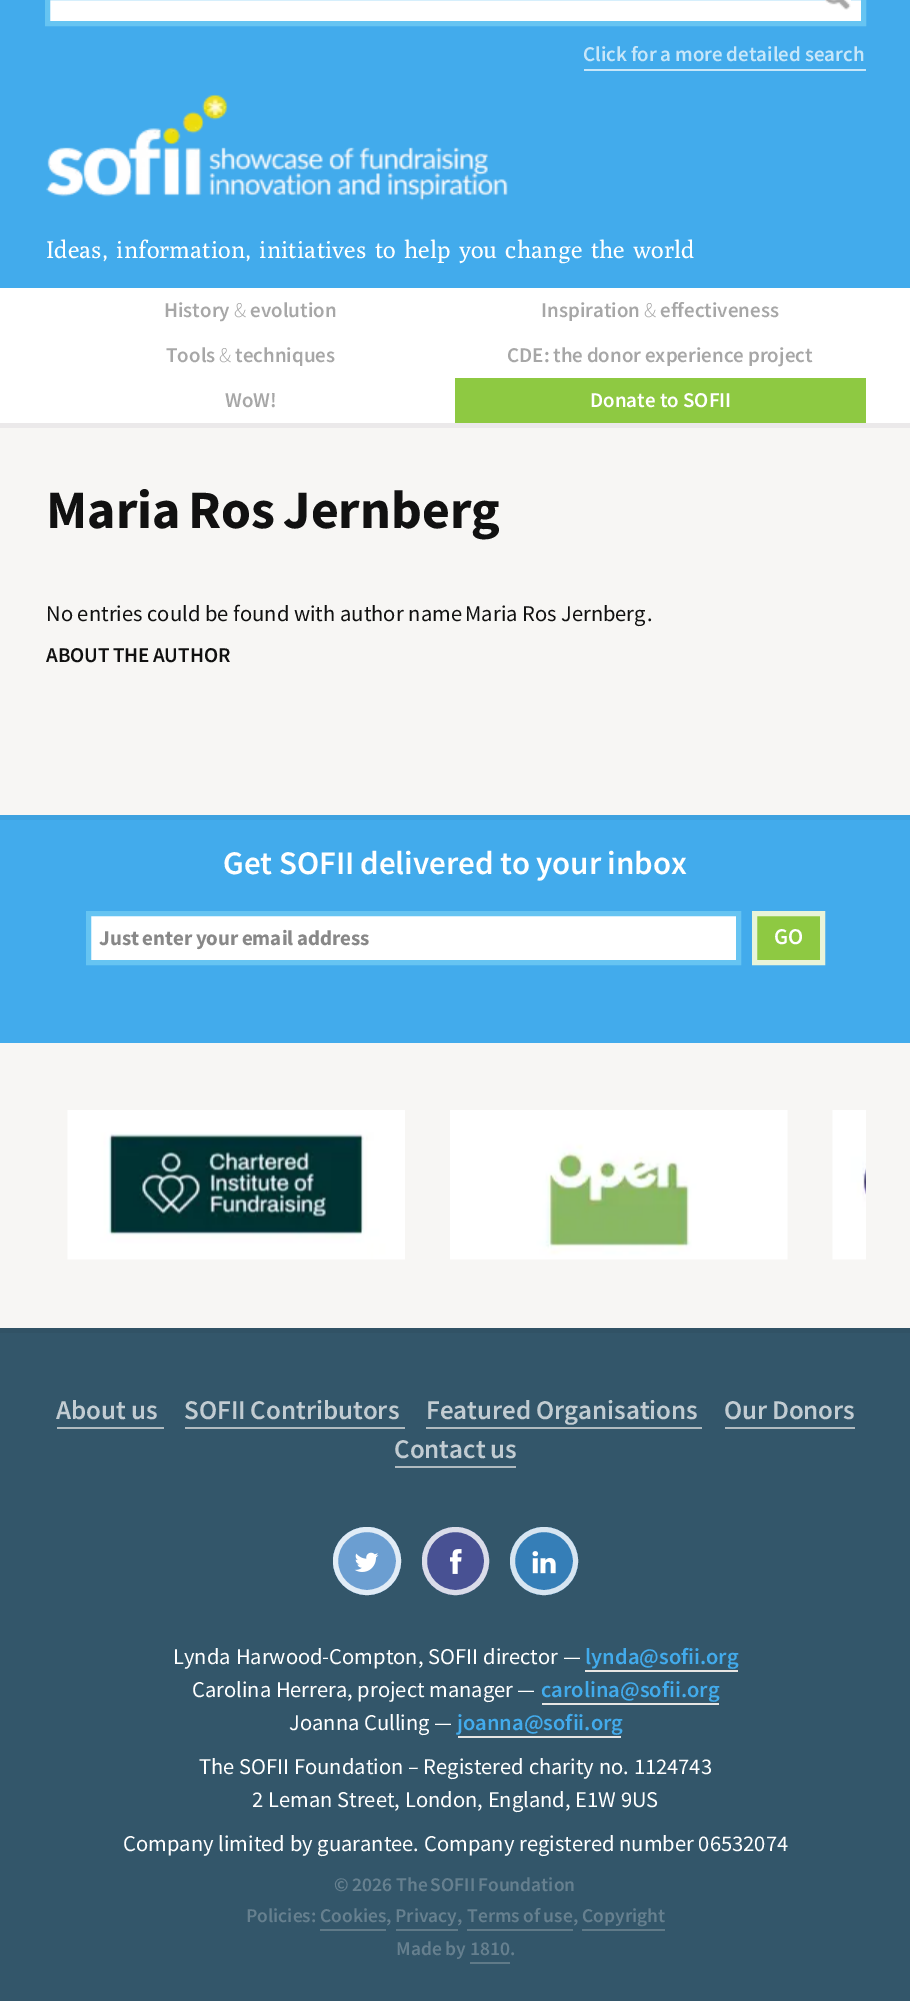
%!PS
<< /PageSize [910 2001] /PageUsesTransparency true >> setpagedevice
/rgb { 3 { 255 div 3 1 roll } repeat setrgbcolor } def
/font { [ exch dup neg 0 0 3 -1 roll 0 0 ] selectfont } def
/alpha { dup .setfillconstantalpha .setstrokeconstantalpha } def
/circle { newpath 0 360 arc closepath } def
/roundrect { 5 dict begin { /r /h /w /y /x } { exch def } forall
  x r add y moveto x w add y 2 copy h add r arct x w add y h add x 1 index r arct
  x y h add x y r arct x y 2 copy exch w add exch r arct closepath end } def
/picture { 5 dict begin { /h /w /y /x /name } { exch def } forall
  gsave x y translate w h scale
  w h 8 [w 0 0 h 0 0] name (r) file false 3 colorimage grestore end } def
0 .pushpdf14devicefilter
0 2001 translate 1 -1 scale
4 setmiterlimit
247 246 244 rgb
0 0 910 2001 rectfill
66 171 236 rgb
0 0 910 288 rectfill
255 255 255 rgb
47.5 -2.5 moveto 863.5 -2.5 lineto 863.5 23.5 lineto 47.5 23.5 lineto closepath gsave fill grestore
102 196 242 rgb
5 setlinewidth
stroke
(img/1.rgb) 825 0 26 10 picture
198 230 249 rgb
584 69 282 2 rectfill
(img/2.rgb) 46 94 462 107 picture
[
  [0 288 910 135 255 255 255]
  [0 423 910 5 235 233 234]
  [455 378 411 45 142 201 66]
  [0 820 910 223 66 171 236]
  [0 815 910 5 62 162 224]
] { aload pop rgb rectfill } forall
255 255 255 rgb
88.5 913.5 moveto 738.5 913.5 lineto 738.5 962.5 lineto 88.5 962.5 lineto closepath gsave fill grestore
102 196 242 rgb
stroke
142 201 66 rgb
754.5 913.5 moveto 822.5 913.5 lineto 822.5 962.5 lineto 754.5 962.5 lineto closepath gsave fill grestore
232 244 217 rgb
stroke
(img/3.rgb) 67 1110 338 150 picture
(img/4.rgb) 450 1110 338 150 picture
(img/5.rgb) 832 1110 34 150 picture
[
  [0 1333 910 668 51 86 106]
  [0 1328 910 5 49 82 101]
  [57 1427 107 2 176 186 191]
  [185 1427 220 2 176 186 191]
  [426 1427 276 2 176 186 191]
  [725 1427 130 2 176 186 191]
  [395 1466 121 2 176 186 191]
] { aload pop rgb rectfill } forall
107 158 209 rgb
367 1561 34 circle fill
0.8 alpha
255 255 255 rgb
367 1561 31.5 circle stroke
1 alpha
(img/6.rgb) 354 1552 25 20 picture
72 81 147 rgb
422 1527 67 68 33.5 roundrect fill
0.8 alpha
255 255 255 rgb
424.5 1529.5 62 63 31 roundrect stroke
1 alpha
(img/7.rgb) 450 1549 12 25 picture
53 126 183 rgb
544 1561 34 circle fill
0.8 alpha
255 255 255 rgb
544 1561 31.5 circle stroke
1 alpha
(img/8.rgb) 532 1551 24 23 picture
[
  [585 1670 153 2 230 229 227]
  [542 1703 177 2 230 229 227]
  [458 1736 163 2 230 229 227]
  [396 1929 62 2 96 122 136]
  [467 1929 106 2 96 122 136]
  [582 1929 83 2 96 122 136]
  [320 1929 66 2 96 122 136]
  [470 1962 40 2 96 122 136]
] { aload pop rgb rectfill } forall
/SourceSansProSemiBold-SemiBold 21 font
198 230 249 rgb
583 61 moveto -0.5 0 32 (Click for a more detailed search) widthshow
/Poly-Regular 24 font
255 255 255 rgb
46 258 moveto 2.5 0 32 (Ideas, information, initiatives to help you change the world) widthshow
/SourceSansProSemiBold-SemiBold 21 font
167 167 167 rgb
164 317 moveto (History) show
/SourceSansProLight-Light 21 font
234 317 moveto (&) show
/SourceSansProSemiBold-SemiBold 21 font
250 317 moveto (evolution) show
541 317 moveto (Inspiration) show
/SourceSansProLight-Light 21 font
644 317 moveto (&) show
/SourceSansProSemiBold-SemiBold 21 font
660 317 moveto (effectiveness) show
166 362 moveto (Tools) show
/SourceSansProLight-Light 21 font
219 362 moveto (&) show
/SourceSansProSemiBold-SemiBold 21 font
235 362 moveto (techniques) show
507 362 moveto -0.5 0 32 (CDE: the donor experience project) widthshow
225 407 moveto (WoW!) show
255 255 255 rgb
590 407 moveto (Donate to SOFII) show
/SourceSansPro-Bold 54 font
17 17 17 rgb
46 528 moveto -3 0 32 (Maria Ros Jernberg) widthshow
/SourceSansPro-Regular 22.5 font
46 621 moveto 0.25 0 32 (No entries could be found with author name) widthshow
465 621 moveto (Maria Ros Jernberg) show
647 621 moveto (.) show
/SourceSansProSemiBold-SemiBold 21 font
46 662 moveto -1 0 32 (ABOUT THE AUTHOR) widthshow
/SourceSansProSemiBold-SemiBold 33 font
255 255 255 rgb
223 874 moveto (Get) show
279 874 moveto (SOFII) show
360 874 moveto -0.5 0 32 (delivered to your inbox) widthshow
/SourceSansPro-Bold 21 font
136 136 136 rgb
99 945 moveto -1 0 32 (Just enter your email address) widthshow
/SourceSansProSemiBold-SemiBold 22.5 font
255 255 255 rgb
774 944 moveto (GO) show
/SourceSansProSemiBold-SemiBold 27 font
194 204 210 rgb
56 1419 moveto (About us) show
184 1419 moveto -1 0 32 (SOFII Contributors) widthshow
426 1419 moveto -1 0 32 (Featured Organisations) widthshow
724 1419 moveto -1 0 32 (Our Donors) widthshow
394 1458 moveto -1 0 32 (Contact us) widthshow
/SourceSansPro-Regular 22.5 font
255 255 255 rgb
173 1664 moveto 0.5 0 32 (Lynda Harwood-Compton, SOFII director —) widthshow
/SourceSansProSemiBold-SemiBold 22.5 font
66 171 236 rgb
585 1664 moveto (lynda@sofii.org) show
/SourceSansPro-Regular 22.5 font
255 255 255 rgb
192 1697 moveto (Carolina Herrera, project manager —) show
/SourceSansProSemiBold-SemiBold 22.5 font
66 171 236 rgb
541 1697 moveto (carolina@sofii.org) show
/SourceSansPro-Regular 22.5 font
255 255 255 rgb
289 1730 moveto (Joanna Culling —) show
/SourceSansProSemiBold-SemiBold 22.5 font
66 171 236 rgb
457 1730 moveto (joanna@sofii.org) show
/SourceSansPro-Regular 22.5 font
255 255 255 rgb
199 1774 moveto 0.25 0 32 (The SOFII Foundation – Registered charity no. 1124743) widthshow
252 1807 moveto 0.25 0 32 (2 Leman Street, London, England, E1W 9US) widthshow
123 1851 moveto 0.25 0 32 (Company limited by guarantee. Company registered number 06532074) widthshow
/SourceSansProSemiBold-SemiBold 19.5 font
102 128 143 rgb
334 1891 moveto (© 2026) show
396 1891 moveto -1 0 32 (The SOFII Foundation) widthshow
[
  [(Policies: Cookies) 246 1922]
  [(,) 386 1922]
  [(Privacy) 395 1922]
  [(,) 457 1922]
] { aload pop moveto show } forall
467 1922 moveto -0.5 0 32 (Terms of use) widthshow
[
  [(,) 573 1922]
  [(Copyright) 582 1922]
  [(Made by) 396 1955]
  [(1810.) 470 1955]
] { aload pop moveto show } forall
.poppdf14devicefilter showpage
